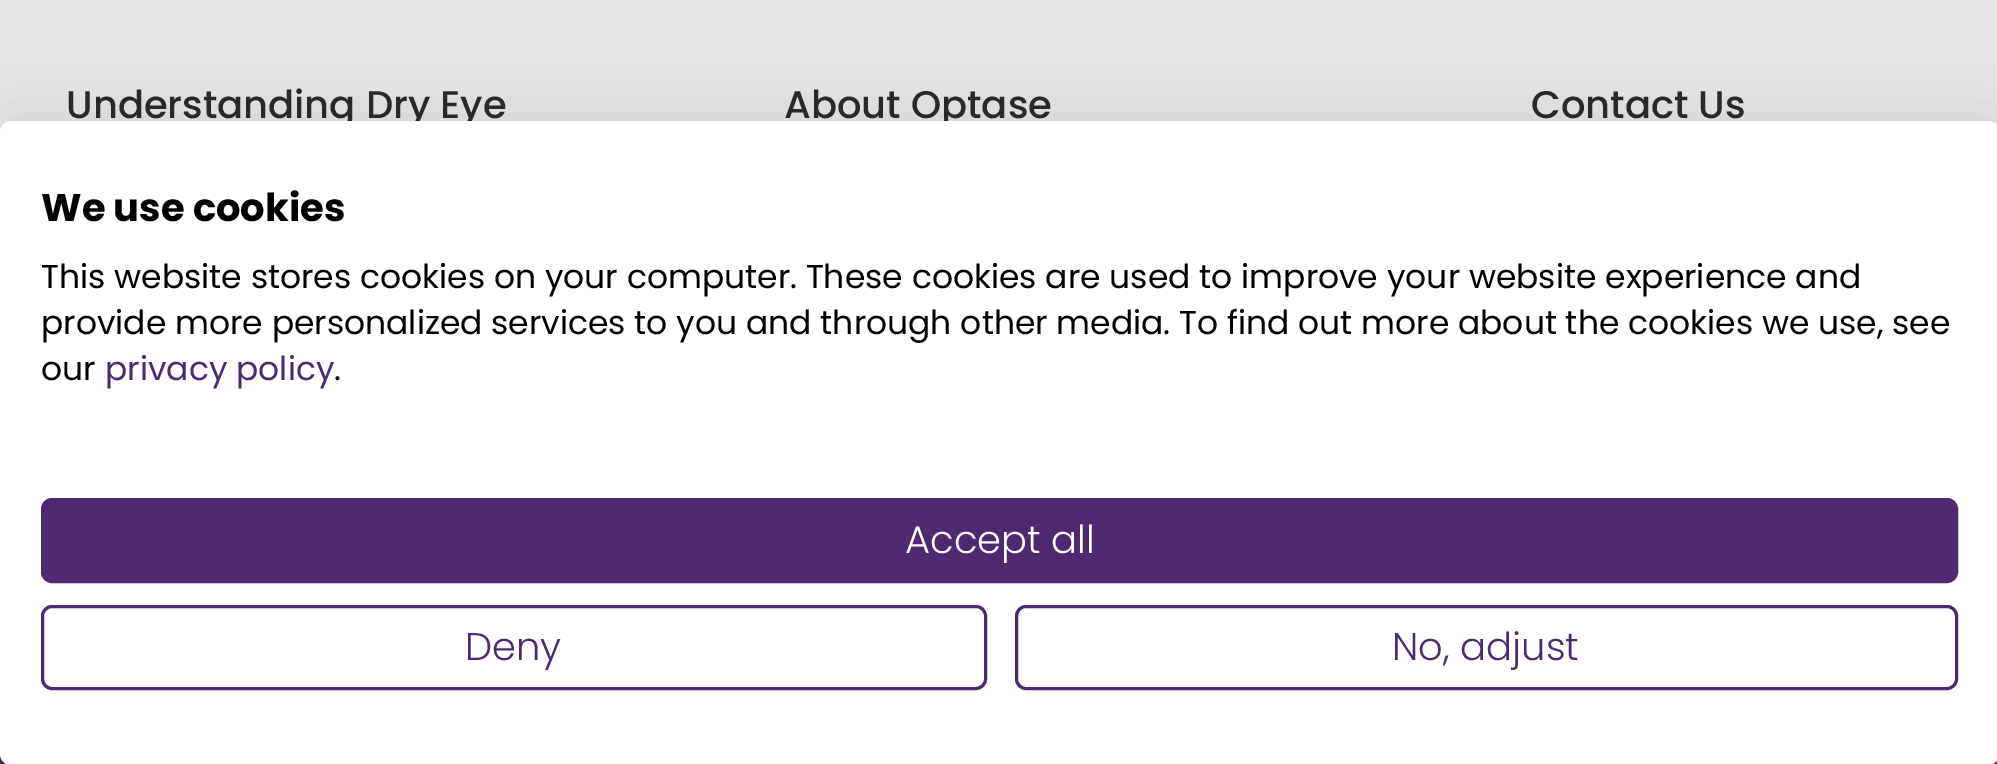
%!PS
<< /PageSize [1997 764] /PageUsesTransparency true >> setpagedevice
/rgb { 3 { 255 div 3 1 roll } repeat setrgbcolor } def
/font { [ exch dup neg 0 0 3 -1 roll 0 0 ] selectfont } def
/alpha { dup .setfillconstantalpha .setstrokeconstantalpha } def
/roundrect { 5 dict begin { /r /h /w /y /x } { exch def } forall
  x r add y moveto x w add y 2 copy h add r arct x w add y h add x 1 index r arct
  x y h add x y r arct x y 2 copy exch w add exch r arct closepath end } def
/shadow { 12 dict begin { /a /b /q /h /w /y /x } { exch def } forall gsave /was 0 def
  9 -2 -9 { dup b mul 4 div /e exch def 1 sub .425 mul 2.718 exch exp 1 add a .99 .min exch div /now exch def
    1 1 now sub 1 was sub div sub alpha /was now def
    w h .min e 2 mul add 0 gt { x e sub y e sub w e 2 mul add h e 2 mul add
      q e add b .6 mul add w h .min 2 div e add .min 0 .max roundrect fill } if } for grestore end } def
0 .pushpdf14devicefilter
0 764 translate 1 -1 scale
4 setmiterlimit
230 230 230 rgb
0 0 1997 764 rectfill
70 37 103 rgb
0 754 1997 10 rectfill
0 0 0 rgb
0 121 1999 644 11 33 0.1 shadow
/Poppins-Medium 38.5 font
41 41 41 rgb
[
  [(Understanding Dry Eye) 66 118]
  [(About Optase) 784 118]
  [(Contact Us) 1531 118]
] { aload pop moveto show } forall
255 255 255 rgb
0 121 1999 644 11 roundrect fill
/Poppins-Bold 38.5 font
0 0 0 rgb
41 221 moveto (We use cookies) show
/Poppins-Regular 33 font
[
  [(This website stores cookies on your computer. These cookies are used to improve your website experience and) 41 288]
  [(provide more personalized services to you and through other media. To find out more about the cookies we use, see) 41 334]
  [(our) 41 380]
] { aload pop moveto show } forall
78 41 114 rgb
105 380 moveto (privacy policy) show
0 0 0 rgb
334 380 moveto (.) show
78 41 114 rgb
42.5 499.5 1914 82 9.5 roundrect gsave fill grestore
3 setlinewidth
stroke
/Poppins-Light 38.5 font
255 255 255 rgb
905 553 moveto (Accept all) show
78 41 114 rgb
42.5 606.5 943 82 9.5 roundrect stroke
465 660 moveto (Deny) show
1016.5 606.5 940 82 9.5 roundrect stroke
1392 660 moveto (No, adjust) show
.poppdf14devicefilter showpage
